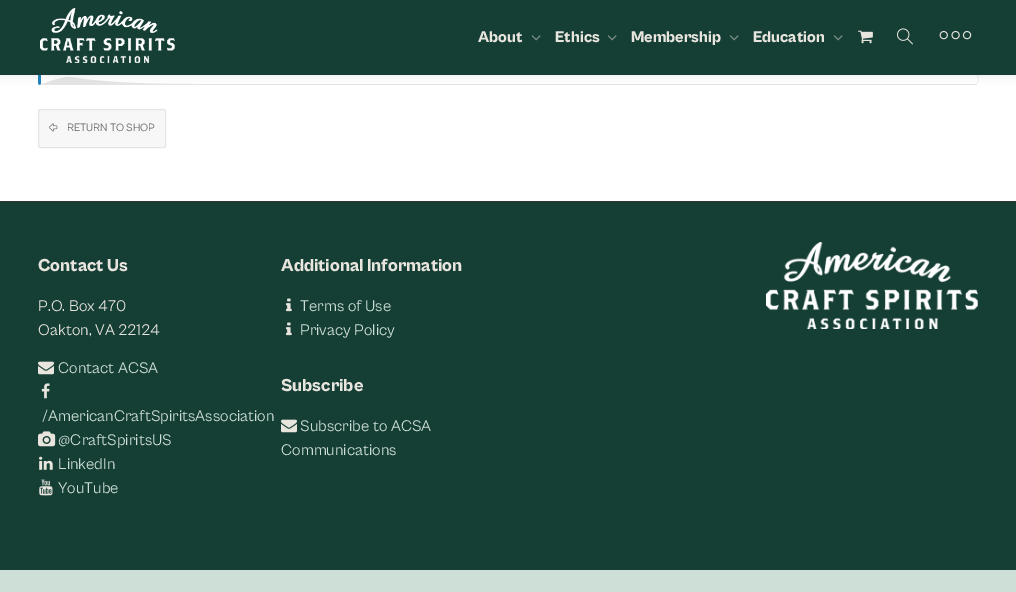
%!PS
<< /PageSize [1016 592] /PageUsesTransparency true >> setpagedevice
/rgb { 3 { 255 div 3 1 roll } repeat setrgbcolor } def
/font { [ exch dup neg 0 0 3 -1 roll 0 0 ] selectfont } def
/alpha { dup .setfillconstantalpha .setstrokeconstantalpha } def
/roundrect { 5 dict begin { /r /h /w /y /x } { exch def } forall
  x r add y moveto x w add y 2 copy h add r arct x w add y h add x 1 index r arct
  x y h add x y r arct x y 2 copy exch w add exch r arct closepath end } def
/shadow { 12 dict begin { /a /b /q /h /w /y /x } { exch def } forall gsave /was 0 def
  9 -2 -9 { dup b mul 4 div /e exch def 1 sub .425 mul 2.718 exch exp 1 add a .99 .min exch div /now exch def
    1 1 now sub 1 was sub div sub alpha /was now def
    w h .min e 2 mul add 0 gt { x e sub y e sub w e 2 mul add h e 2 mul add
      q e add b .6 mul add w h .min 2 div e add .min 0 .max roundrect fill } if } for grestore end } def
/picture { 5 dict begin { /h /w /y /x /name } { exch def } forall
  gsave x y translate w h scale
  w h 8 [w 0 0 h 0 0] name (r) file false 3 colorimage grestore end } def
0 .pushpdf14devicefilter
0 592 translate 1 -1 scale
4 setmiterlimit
255 255 255 rgb
0 0 1016 592 rectfill
229 229 229 rgb
978 83 moveto 978 77 979 33 977 32 curveto 977 68 lineto 978 82 lineto 977 84 lineto closepath fill
40 85 moveto 977 85 lineto 977 84 lineto 197 84 lineto 40 84 90 68 39 85 curveto closepath fill
30 133 190 rgb
41 32 moveto 39 31 lineto 38 33 lineto 38 83 lineto 39 85 lineto 41 84 lineto closepath fill
0 0 0 rgb
0 0 1016 75 0 5 0.1 shadow
21 62 53 rgb
0 0 1016 75 rectfill
(img/1.rgb) 40 8 135 55 picture
(img/2.rgb) 531 35 10 6 picture
(img/2.rgb) 607 35 10 6 picture
(img/2.rgb) 729 35 10 6 picture
(img/2.rgb) 833 35 10 6 picture
(img/3.rgb) 858 30 15 14 picture
(img/4.rgb) 897 28 16 17 picture
(img/5.rgb) 939 30 33 10 picture
247 247 247 rgb
38.5 109.5 127 38 1.5 roundrect gsave fill grestore
229 229 229 rgb
stroke
(img/6.rgb) 49 123 9 9 picture
21 62 53 rgb
0 202 1016 368 rectfill
51 51 51 rgb
0 201 1016 1 rectfill
(img/7.rgb) 38 361 16 14 picture
(img/8.rgb) 41 383 9 16 picture
(img/9.rgb) 38 431 18 16 picture
(img/10.rgb) 39 456 14 14 picture
(img/11.rgb) 39 479 14 17 picture
(img/12.rgb) 286 298 6 14 picture
(img/12.rgb) 286 322 6 14 picture
(img/7.rgb) 281 419 16 14 picture
(img/13.rgb) 766 242 212 87 picture
206 223 215 rgb
0 570 1016 22 rectfill
/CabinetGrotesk-ExtraBold 16 font
232 229 222 rgb
[
  [(About) 478 42]
  [(Ethics) 555 42]
  [(Membership) 631 42]
  [(Education) 753 42]
] { aload pop moveto show } forall
/CabinetGrotesk-Regular 11 font
94 94 94 rgb
67 131 moveto (RETURN TO SHOP) show
/CabinetGrotesk-ExtraBold 18 font
232 229 222 rgb
38 271 moveto (Contact Us) show
/CabinetGrotesk-Regular 16 font
38 311 moveto (P.O. Box 470) show
38 335 moveto (Oakton, VA 22124) show
206 223 215 rgb
[
  [(Contact ACSA) 58 373]
  [(/AmericanCraftSpiritsAssociation) 42 421]
  [(@CraftSpiritsUS) 58 445]
  [(LinkedIn) 58 469]
  [(YouTube) 58 493]
] { aload pop moveto show } forall
/CabinetGrotesk-ExtraBold 18 font
232 229 222 rgb
281 271 moveto (Additional Information) show
/CabinetGrotesk-Regular 16 font
206 223 215 rgb
300 311 moveto (Terms of Use) show
300 335 moveto (Privacy Policy) show
/CabinetGrotesk-ExtraBold 18 font
232 229 222 rgb
281 391 moveto (Subscribe) show
/CabinetGrotesk-Regular 16 font
206 223 215 rgb
300 431 moveto (Subscribe to ACSA) show
281 455 moveto (Communications) show
.poppdf14devicefilter showpage
